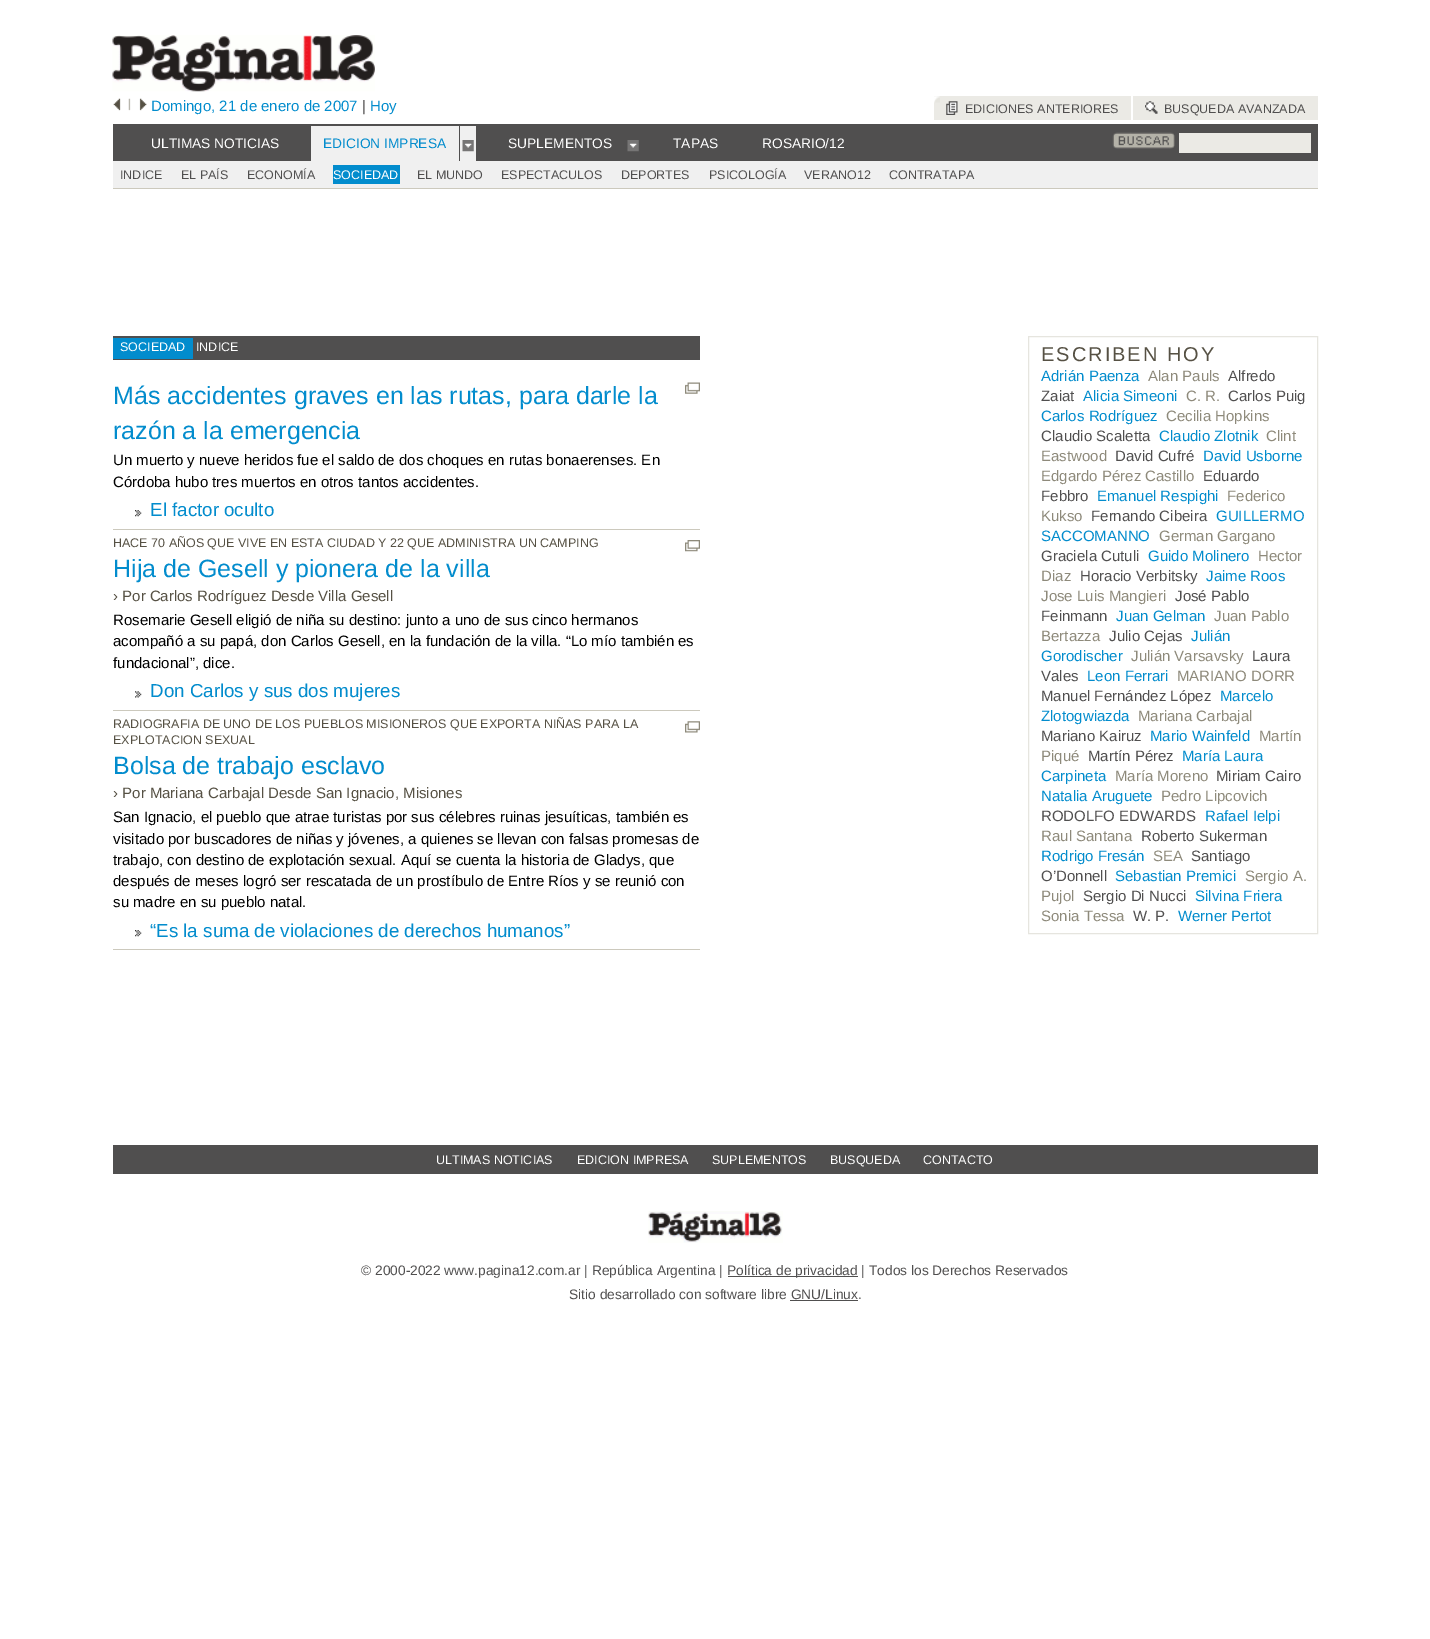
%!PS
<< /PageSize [1430 1639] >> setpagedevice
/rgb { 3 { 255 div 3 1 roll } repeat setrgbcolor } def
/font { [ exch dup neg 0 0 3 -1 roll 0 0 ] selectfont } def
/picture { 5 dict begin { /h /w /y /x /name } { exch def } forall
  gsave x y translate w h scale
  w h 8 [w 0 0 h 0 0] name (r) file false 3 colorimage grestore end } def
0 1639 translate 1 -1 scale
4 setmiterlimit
255 255 255 rgb
0 0 1430 1639 rectfill
(img/1.rgb) 112 35 263 57 picture
(img/2.rgb) 113 98 8 13 picture
(img/3.rgb) 128 98 3 13 picture
(img/4.rgb) 139 98 8 13 picture
235 234 229 rgb
934 96 197 24 rectfill
(img/5.rgb) 934 96 6 7 picture
(img/6.rgb) 946 101 12 14 picture
1133 96 185 24 rectfill
(img/7.rgb) 1145 101 13 13 picture
[
  [113 124 1205 37 80 79 79]
  [311 126 148 35 240 240 240]
  [460 126 16 35 240 240 240]
] { aload pop rgb rectfill } forall
(img/8.rgb) 462 140 12 12 picture
(img/9.rgb) 627 140 12 12 picture
(img/10.rgb) 1112 132 63 17 picture
[
  [1179 133 132 20 235 234 229]
  [113 161 1205 27 240 240 240]
  [113 188 1205 1 204 201 189]
  [333 165 67 19 2 140 205]
  [113 336 587 24 80 79 79]
  [113 338 80 21 2 140 205]
  [113 529 587 1 204 201 189]
] { aload pop rgb rectfill } forall
(img/11.rgb) 685 382 15 12 picture
(img/12.rgb) 135 510 7 7 picture
113 710 587 1 rectfill
(img/13.rgb) 685 540 15 12 picture
(img/14.rgb) 135 691 7 7 picture
113 949 587 1 rectfill
(img/15.rgb) 685 721 15 12 picture
(img/12.rgb) 135 930 7 7 picture
230 229 223 rgb
1028.5 336.5 289 597 rectstroke
80 79 79 rgb
113 1145 1205 29 rectfill
(img/16.rgb) 648 1211 135 32 picture
728 1276 130 1 rectfill
790 1300 68 1 rectfill
/LiberationSans-Regular 15 font
2 140 205 rgb
151 111 moveto (Domingo, 21 de enero de 2007) show
80 79 79 rgb
362 111 moveto (|) show
2 140 205 rgb
370 111 moveto (Hoy) show
/LiberationSans-Regular 12.5 font
80 79 79 rgb
965 113 moveto (EDICIONES ANTERIORES) show
1164 113 moveto (BUSQUEDA AVANZADA) show
/LiberationSans-Regular 13.75 font
255 255 255 rgb
151 148 moveto (ULTIMAS NOTICIAS) show
2 140 205 rgb
323 148 moveto (EDICION IMPRESA) show
255 255 255 rgb
[
  [(SUPLEMENTOS) 508 148]
  [(TAPAS) 673 148]
  [(ROSARIO/12) 762 148]
] { aload pop moveto show } forall
/LiberationSans-Regular 12.5 font
80 79 79 rgb
[
  [(INDICE) 120 179]
  [(EL PAÍS) 181 179]
  [(ECONOMÍA) 247 179]
] { aload pop moveto show } forall
255 255 255 rgb
333 179 moveto (SOCIEDAD) show
80 79 79 rgb
[
  [(EL MUNDO) 417 179]
  [(ESPECTACULOS) 501 179]
  [(DEPORTES) 621 179]
  [(PSICOLOGÍA) 709 179]
  [(VERANO12) 804 179]
  [(CONTRATAPA) 889 179]
] { aload pop moveto show } forall
255 255 255 rgb
120 351 moveto (SOCIEDAD) show
196 351 moveto (INDICE) show
/LiberationSans-Regular 25 font
2 140 205 rgb
113 404 moveto (Más accidentes graves en las rutas, para darle la) show
113 439 moveto (razón a la emergencia) show
/LiberationSans-Regular 15 font
0 0 0 rgb
113 465 moveto (Un muerto y nueve heridos fue el saldo de dos choques en rutas bonaerenses. En) show
113 487 moveto (Córdoba hubo tres muertos en otros tantos accidentes.) show
/LiberationSans-Regular 18.75 font
2 140 205 rgb
150 516 moveto (El factor oculto) show
/LiberationSans-Regular 12.5 font
86 81 68 rgb
113 547 moveto (HACE 70 AÑOS QUE VIVE EN ESTA CIUDAD Y 22 QUE ADMINISTRA UN CAMPING) show
/LiberationSans-Regular 25 font
2 140 205 rgb
113 577 moveto (Hija de Gesell y pionera de la villa) show
/LiberationSans-Regular 15 font
86 81 68 rgb
113 601 moveto (› Por Carlos Rodríguez Desde Villa Gesell) show
0 0 0 rgb
[
  [(Rosemarie Gesell eligió de niña su destino: junto a uno de sus cinco hermanos) 113 625]
  [(acompañó a su papá, don Carlos Gesell, en la fundación de la villa. “Lo mío también es) 113 646]
  [(fundacional”, dice.) 113 668]
] { aload pop moveto show } forall
/LiberationSans-Regular 18.75 font
2 140 205 rgb
150 697 moveto (Don Carlos y sus dos mujeres) show
/LiberationSans-Regular 12.5 font
86 81 68 rgb
113 728 moveto (RADIOGRAFIA DE UNO DE LOS PUEBLOS MISIONEROS QUE EXPORTA NIÑAS PARA LA) show
113 744 moveto (EXPLOTACION SEXUAL) show
/LiberationSans-Regular 25 font
2 140 205 rgb
113 774 moveto (Bolsa de trabajo esclavo) show
/LiberationSans-Regular 15 font
86 81 68 rgb
113 798 moveto (› Por Mariana Carbajal Desde San Ignacio, Misiones) show
0 0 0 rgb
[
  [(San Ignacio, el pueblo que atrae turistas por sus célebres ruinas jesuíticas, también es) 113 822]
  [(visitado por buscadores de niñas y jóvenes, a quienes se llevan con falsas promesas de) 113 844]
  [(trabajo, con destino de explotación sexual. Aquí se cuenta la historia de Gladys, que) 113 865]
  [(después de meses logró ser rescatada de un prostíbulo de Entre Ríos y se reunió con) 113 886]
  [(su madre en su pueblo natal.) 113 907]
] { aload pop moveto show } forall
/LiberationSans-Regular 18.75 font
2 140 205 rgb
150 937 moveto (“Es la suma de violaciones de derechos humanos”) show
/LiberationSans-Regular 20 font
86 81 68 rgb
1041 361 moveto 2 0 (ESCRIBEN HOY) ashow
/LiberationSans-Regular 15 font
2 140 205 rgb
1041 381 moveto (Adrián Paenza) show
142 138 123 rgb
1148 381 moveto (Alan Pauls) show
80 79 79 rgb
1228 381 moveto (Alfredo) show
1041 401 moveto (Zaiat) show
2 140 205 rgb
1083 401 moveto (Alicia Simeoni) show
142 138 123 rgb
1186 401 moveto (C. R.) show
80 79 79 rgb
1228 401 moveto (Carlos Puig) show
2 140 205 rgb
1041 421 moveto (Carlos Rodríguez) show
142 138 123 rgb
1166 421 moveto (Cecilia Hopkins) show
80 79 79 rgb
1041 441 moveto (Claudio Scaletta) show
2 140 205 rgb
1159 441 moveto (Claudio Zlotnik) show
142 138 123 rgb
1266 441 moveto (Clint) show
1041 461 moveto (Eastwood) show
80 79 79 rgb
1115 461 moveto (David Cufré) show
2 140 205 rgb
1203 461 moveto (David Usborne) show
142 138 123 rgb
1041 481 moveto (Edgardo Pérez Castillo) show
80 79 79 rgb
1203 481 moveto (Eduardo) show
1041 501 moveto (Febbro) show
2 140 205 rgb
1097 501 moveto (Emanuel Respighi) show
142 138 123 rgb
1227 501 moveto (Federico) show
1041 521 moveto (Kukso) show
80 79 79 rgb
1091 521 moveto (Fernando Cibeira) show
2 140 205 rgb
1216 521 moveto (GUILLERMO) show
1041 541 moveto (SACCOMANNO) show
142 138 123 rgb
1159 541 moveto (German Gargano) show
80 79 79 rgb
1041 561 moveto (Graciela Cutuli) show
2 140 205 rgb
1148 561 moveto (Guido Molinero) show
142 138 123 rgb
1258 561 moveto (Hector) show
1041 581 moveto (Diaz) show
80 79 79 rgb
1080 581 moveto (Horacio Verbitsky) show
2 140 205 rgb
1206 581 moveto (Jaime Roos) show
142 138 123 rgb
1041 601 moveto (Jose Luis Mangieri) show
80 79 79 rgb
1175 601 moveto (José Pablo) show
1041 621 moveto (Feinmann) show
2 140 205 rgb
1116 621 moveto (Juan Gelman) show
142 138 123 rgb
1214 621 moveto (Juan Pablo) show
1041 641 moveto (Bertazza) show
80 79 79 rgb
1109 641 moveto (Julio Cejas) show
2 140 205 rgb
1191 641 moveto (Julián) show
1041 661 moveto (Gorodischer) show
142 138 123 rgb
1131 661 moveto (Julián Varsavsky) show
80 79 79 rgb
1252 661 moveto (Laura) show
1041 681 moveto (Vales) show
2 140 205 rgb
1087 681 moveto (Leon Ferrari) show
142 138 123 rgb
1177 681 moveto (MARIANO DORR) show
80 79 79 rgb
1041 701 moveto (Manuel Fernández López) show
2 140 205 rgb
1220 701 moveto (Marcelo) show
1041 721 moveto (Zlotogwiazda) show
142 138 123 rgb
1138 721 moveto (Mariana Carbajal) show
80 79 79 rgb
1041 741 moveto (Mariano Kairuz) show
2 140 205 rgb
1150 741 moveto (Mario Wainfeld) show
142 138 123 rgb
1259 741 moveto (Martín) show
1041 761 moveto (Piqué) show
80 79 79 rgb
1088 761 moveto (Martín Pérez) show
2 140 205 rgb
1182 761 moveto (María Laura) show
1041 781 moveto (Carpineta) show
142 138 123 rgb
1115 781 moveto (María Moreno) show
80 79 79 rgb
1216 781 moveto (Miriam Cairo) show
2 140 205 rgb
1041 801 moveto (Natalia Aruguete) show
142 138 123 rgb
1161 801 moveto (Pedro Lipcovich) show
80 79 79 rgb
1041 821 moveto (RODOLFO EDWARDS) show
2 140 205 rgb
1205 821 moveto (Rafael Ielpi) show
142 138 123 rgb
1041 841 moveto (Raul Santana) show
80 79 79 rgb
1141 841 moveto (Roberto Sukerman) show
2 140 205 rgb
1041 861 moveto (Rodrigo Fresán) show
142 138 123 rgb
1153 861 moveto (SEA) show
80 79 79 rgb
1191 861 moveto (Santiago) show
1041 881 moveto (O’Donnell) show
2 140 205 rgb
1115 881 moveto (Sebastian Premici) show
142 138 123 rgb
1245 881 moveto (Sergio A.) show
1041 901 moveto (Pujol) show
80 79 79 rgb
1083 901 moveto (Sergio Di Nucci) show
2 140 205 rgb
1195 901 moveto (Silvina Friera) show
142 138 123 rgb
1041 921 moveto (Sonia Tessa) show
80 79 79 rgb
1133 921 moveto (W. P.) show
2 140 205 rgb
1178 921 moveto (Werner Pertot) show
/LiberationSans-Regular 12.5 font
255 255 255 rgb
[
  [(ULTIMAS NOTICIAS) 436 1164]
  [(EDICION IMPRESA) 577 1164]
  [(SUPLEMENTOS) 712 1164]
  [(BUSQUEDA) 830 1164]
  [(CONTACTO) 923 1164]
] { aload pop moveto show } forall
/LiberationSans-Regular 13.75 font
80 79 79 rgb
[
  [(© 2000-2022 www.pagina12.com.ar | República Argentina |) 361 1275]
  [(Política de privacidad | Todos los Derechos Reservados) 727 1275]
  [(Sitio desarrollado con software libre GNU/Linux.) 569 1299]
] { aload pop moveto show } forall
showpage
